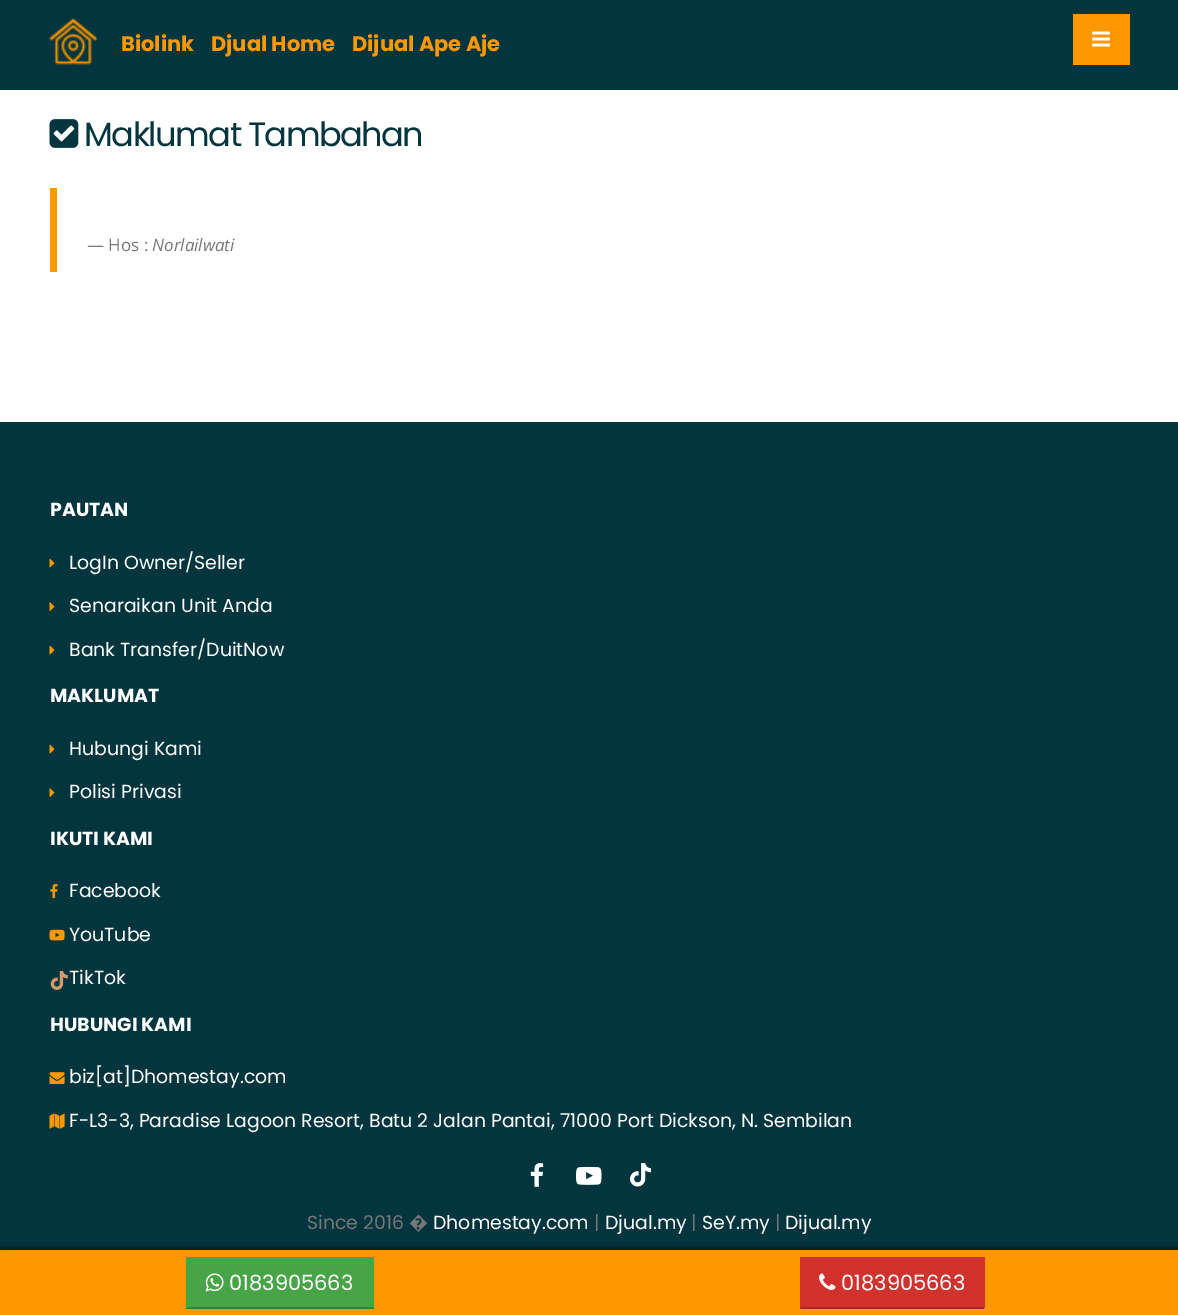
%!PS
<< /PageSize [1178 1315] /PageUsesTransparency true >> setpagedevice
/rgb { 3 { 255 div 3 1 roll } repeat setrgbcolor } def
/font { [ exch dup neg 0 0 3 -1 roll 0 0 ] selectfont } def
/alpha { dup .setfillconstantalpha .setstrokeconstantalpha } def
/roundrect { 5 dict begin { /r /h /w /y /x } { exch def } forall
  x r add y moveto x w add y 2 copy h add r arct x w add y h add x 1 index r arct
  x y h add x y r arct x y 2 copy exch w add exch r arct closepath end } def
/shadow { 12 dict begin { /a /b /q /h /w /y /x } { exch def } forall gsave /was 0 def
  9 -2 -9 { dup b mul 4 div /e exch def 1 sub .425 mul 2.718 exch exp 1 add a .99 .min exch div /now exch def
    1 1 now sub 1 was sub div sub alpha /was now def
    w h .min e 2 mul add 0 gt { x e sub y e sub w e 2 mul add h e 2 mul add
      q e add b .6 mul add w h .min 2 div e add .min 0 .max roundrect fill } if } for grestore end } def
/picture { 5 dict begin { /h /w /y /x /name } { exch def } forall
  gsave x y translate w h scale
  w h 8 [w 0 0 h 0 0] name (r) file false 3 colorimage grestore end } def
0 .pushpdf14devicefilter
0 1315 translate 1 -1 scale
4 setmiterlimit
255 255 255 rgb
0 0 1178 1315 rectfill
3 53 62 rgb
0 0 1178 90 rectfill
(img/1.rgb) 49 18 49 47 picture
255 151 0 rgb
1073 14 57 51 rectfill
(img/2.rgb) 1092 31 18 16 picture
(img/3.rgb) 49 119 30 29 picture
50 188 7 84 rectfill
3 53 62 rgb
0 422 1178 828 rectfill
0 0 0 rgb
0 1250 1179 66 0 4 1 shadow
[
  [0 1250 1178 65 255 151 0]
  [188 1257 186 50 71 164 71]
  [186 1307 188 2 56 128 56]
  [186 1257 2 51 71 164 71]
] { aload pop rgb rectfill } forall
(img/4.rgb) 205 1273 19 19 picture
[
  [802 1257 181 50 210 50 45]
  [983 1257 2 51 210 50 45]
  [800 1307 184 2 168 40 36]
  [800 1257 2 51 210 50 45]
] { aload pop rgb rectfill } forall
(img/5.rgb) 819 1273 17 17 picture
(img/6.rgb) 49 558 6 10 picture
(img/7.rgb) 49 602 6 9 picture
(img/6.rgb) 49 645 6 10 picture
(img/6.rgb) 49 744 6 10 picture
(img/7.rgb) 49 788 6 9 picture
(img/8.rgb) 50 884 8 15 picture
(img/9.rgb) 49 929 16 12 picture
(img/10.rgb) 50 971 18 19 picture
(img/11.rgb) 49 1072 16 13 picture
(img/12.rgb) 49 1113 16 16 picture
(img/13.rgb) 530 1163 14 24 picture
(img/14.rgb) 576 1166 26 19 picture
(img/15.rgb) 630 1163 21 24 picture
/Poppins-Bold 21 font
255 151 0 rgb
[
  [(Biolink) 121 51]
  [(Djual Home) 211 51]
  [(Dijual Ape Aje) 352 51]
] { aload pop moveto show } forall
/Poppins-Regular 33.6 font
3 53 62 rgb
84 146 moveto -1.5 0 (Maklumat Tambahan) ashow
/OpenSans-Regular 17 font
119 119 119 rgb
87 251 moveto (— Hos :) show
/OpenSans-Italic 17 font
152 251 moveto (Norlailwati) show
/Poppins-Regular 21 font
255 255 255 rgb
229 1290 moveto (0183905663) show
841 1290 moveto (0183905663) show
/Poppins-Bold 18.9 font
50 516 moveto (PAUTAN) show
/Poppins-Regular 18.9 font
[
  [(LogIn Owner/Seller) 69 569]
  [(Senaraikan Unit Anda) 69 612]
  [(Bank Transfer/DuitNow) 69 656]
] { aload pop moveto show } forall
/Poppins-Bold 18.9 font
50 702 moveto (MAKLUMAT) show
/Poppins-Regular 18.9 font
69 755 moveto (Hubungi Kami) show
69 798 moveto (Polisi Privasi) show
/Poppins-Bold 18.9 font
50 845 moveto (IKUTI KAMI) show
/Poppins-Regular 18.9 font
[
  [(Facebook) 69 897]
  [(YouTube) 69 941]
  [(TikTok) 69 984]
] { aload pop moveto show } forall
/Poppins-Bold 18.9 font
50 1031 moveto (HUBUNGI KAMI) show
/Poppins-Regular 18.9 font
69 1083 moveto (biz[at]Dhomestay.com) show
69 1127 moveto (F-L3-3, Paradise Lagoon Resort, Batu 2 Jalan Pantai, 71000 Port Dickson, N. Sembilan) show
119 119 119 rgb
307 1229 moveto (Since 2016) show
/NotoSans-Regular 18.9 font
409 1229 moveto (�) show
/Poppins-Regular 18.9 font
255 255 255 rgb
433 1229 moveto (Dhomestay.com) show
119 119 119 rgb
594 1229 moveto (|) show
255 255 255 rgb
605 1229 moveto (Djual.my) show
119 119 119 rgb
691 1229 moveto (|) show
255 255 255 rgb
702 1229 moveto (SeY.my) show
119 119 119 rgb
775 1229 moveto (|) show
255 255 255 rgb
785 1229 moveto (Dijual.my) show
.poppdf14devicefilter showpage
